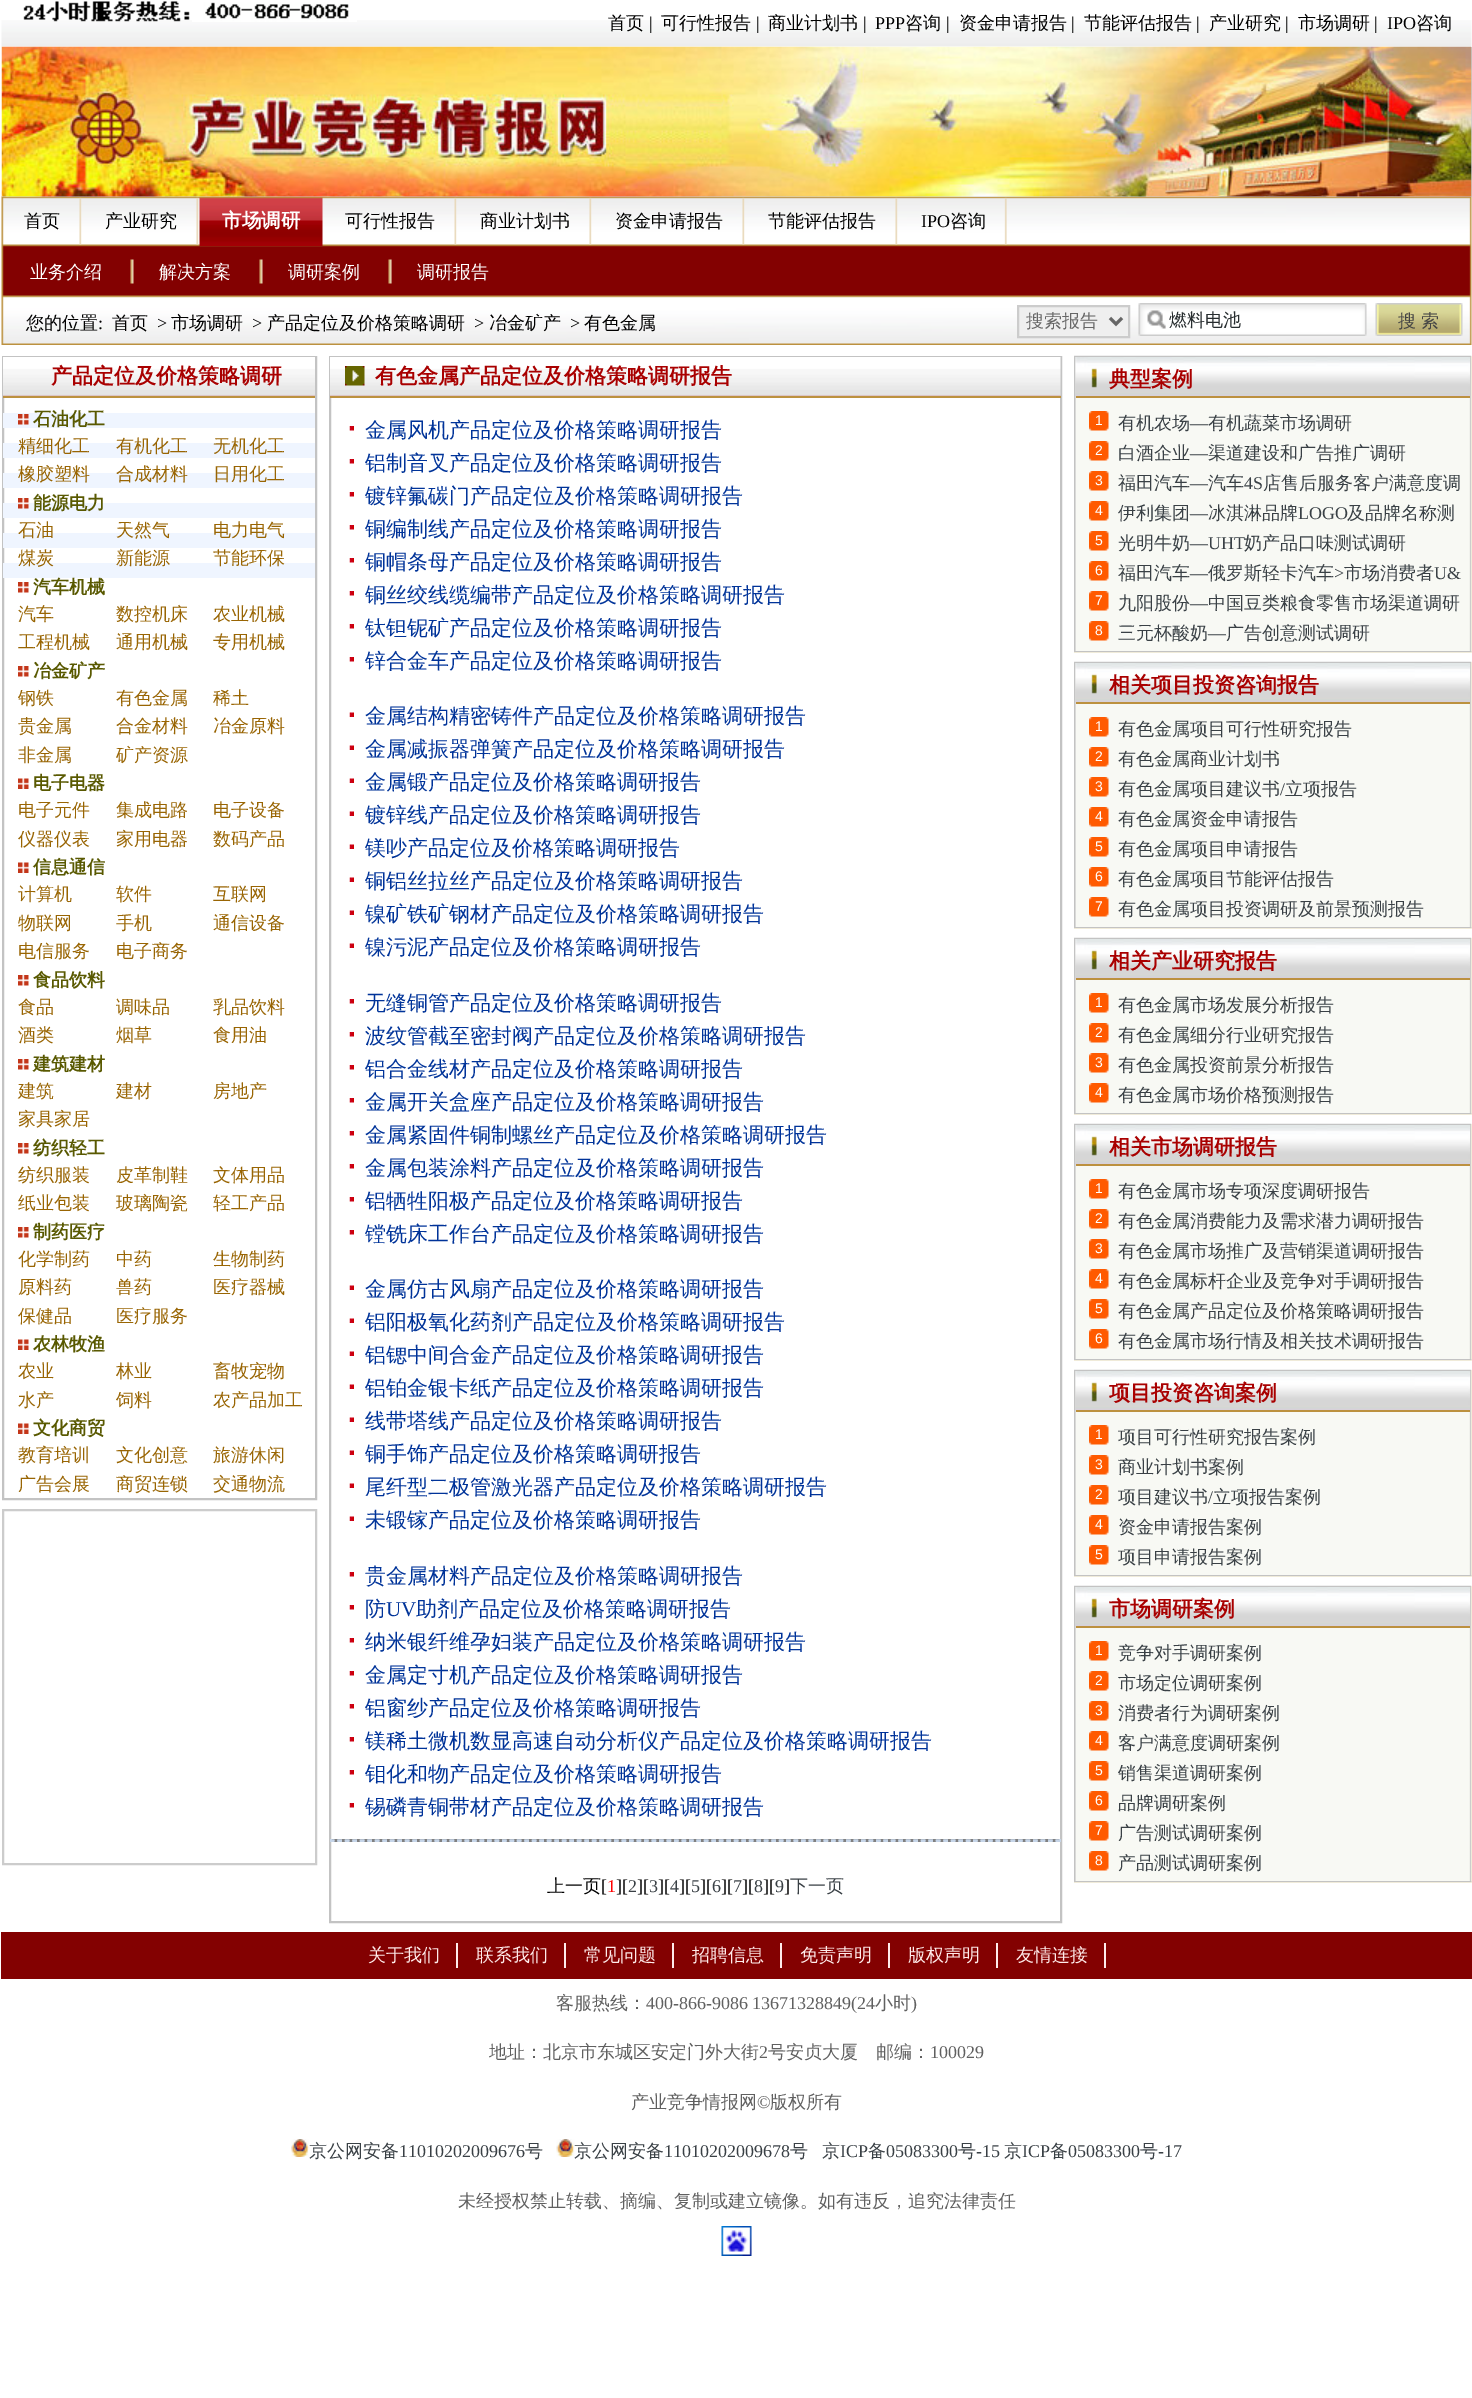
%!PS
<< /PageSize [1472 2398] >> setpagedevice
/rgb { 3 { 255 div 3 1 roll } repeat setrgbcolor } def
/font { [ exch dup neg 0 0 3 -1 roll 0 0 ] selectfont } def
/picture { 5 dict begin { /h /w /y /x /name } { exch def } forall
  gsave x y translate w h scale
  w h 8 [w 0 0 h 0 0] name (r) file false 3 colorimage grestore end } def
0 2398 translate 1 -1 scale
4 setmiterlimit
255 255 255 rgb
0 0 1472 2398 rectfill
(img/1.rgb) 1 20 1471 27 picture
(img/2.rgb) 23 1 167 21 picture
(img/3.rgb) 192 2 165 20 picture
(img/5.rgb) 1 196 1471 149 picture
204 204 204 rgb
2 47 1470 150 rectfill
(img/4.rgb) 1 46 1471 151 picture
(img/6.rgb) 79 197 3 48 picture
(img/7.rgb) 196 197 3 48 picture
(img/8.rgb) 199 197 124 49 picture
(img/9.rgb) 454 197 3 48 picture
(img/10.rgb) 589 197 3 48 picture
(img/11.rgb) 742 197 3 48 picture
(img/12.rgb) 895 197 3 48 picture
(img/13.rgb) 1004 197 3 48 picture
(img/14.rgb) 130 259 4 25 picture
(img/14.rgb) 259 259 4 25 picture
(img/15.rgb) 388 259 4 25 picture
239 239 239 rgb
1019 307 109 28 rectfill
204 204 204 rgb
2 setlinewidth
1018 306 111 31 rectstroke
102 102 102 rgb
3 setlinewidth
1110 318 moveto 1116 324 lineto 1122 318 lineto stroke
(img/16.rgb) 1138 303 229 33 picture
(img/17.rgb) 1375 303 88 33 picture
195 195 195 rgb
2 setlinewidth
3 357 313 1142 rectstroke
(img/18.rgb) 3 357 312 39 picture
188 145 63 rgb
3 396 312 2 rectfill
239 245 255 rgb
3 413 312 15 rectfill
(img/19.rgb) 18 414 11 11 picture
3 503 312 15 rectfill
(img/20.rgb) 18 498 11 11 picture
(img/21.rgb) 18 582 11 11 picture
3 443 312 15 rectfill
(img/21.rgb) 18 666 11 11 picture
(img/22.rgb) 18 778 11 11 picture
3 473 312 15 rectfill
(img/22.rgb) 18 862 11 11 picture
(img/21.rgb) 18 975 11 11 picture
(img/21.rgb) 18 1059 11 11 picture
(img/21.rgb) 18 1143 11 11 picture
3 533 312 15 rectfill
(img/21.rgb) 18 1227 11 11 picture
(img/22.rgb) 18 1339 11 11 picture
3 563 312 15 rectfill
(img/22.rgb) 18 1423 11 11 picture
204 204 204 rgb
3 1510 313 354 rectstroke
195 195 195 rgb
330 357 731 1565 rectstroke
(img/23.rgb) 330 357 731 39 picture
188 145 63 rgb
330 396 731 2 rectfill
(img/24.rgb) 345 366 20 20 picture
(img/25.rgb) 349 426 5 5 picture
(img/25.rgb) 349 459 5 5 picture
(img/25.rgb) 349 492 5 5 picture
(img/25.rgb) 349 525 5 5 picture
(img/25.rgb) 349 558 5 5 picture
(img/25.rgb) 349 591 5 5 picture
(img/25.rgb) 349 624 5 5 picture
(img/25.rgb) 349 657 5 5 picture
(img/26.rgb) 349 712 5 5 picture
(img/26.rgb) 349 745 5 5 picture
(img/26.rgb) 349 778 5 5 picture
(img/26.rgb) 349 811 5 5 picture
(img/26.rgb) 349 844 5 5 picture
(img/26.rgb) 349 877 5 5 picture
(img/26.rgb) 349 910 5 5 picture
(img/26.rgb) 349 943 5 5 picture
(img/25.rgb) 349 999 5 5 picture
(img/25.rgb) 349 1032 5 5 picture
(img/25.rgb) 349 1065 5 5 picture
(img/25.rgb) 349 1098 5 5 picture
(img/25.rgb) 349 1131 5 5 picture
(img/25.rgb) 349 1164 5 5 picture
(img/25.rgb) 349 1197 5 5 picture
(img/25.rgb) 349 1230 5 5 picture
(img/26.rgb) 349 1285 5 5 picture
(img/26.rgb) 349 1318 5 5 picture
(img/26.rgb) 349 1351 5 5 picture
(img/26.rgb) 349 1384 5 5 picture
(img/26.rgb) 349 1417 5 5 picture
(img/26.rgb) 349 1450 5 5 picture
(img/26.rgb) 349 1483 5 5 picture
(img/26.rgb) 349 1516 5 5 picture
(img/25.rgb) 349 1572 5 5 picture
(img/25.rgb) 349 1605 5 5 picture
(img/25.rgb) 349 1638 5 5 picture
(img/25.rgb) 349 1671 5 5 picture
(img/25.rgb) 349 1704 5 5 picture
(img/25.rgb) 349 1737 5 5 picture
(img/25.rgb) 349 1770 5 5 picture
(img/25.rgb) 349 1803 5 5 picture
128 128 128 rgb
330 1839 731 3 rectfill
198 213 232 rgb
1.5 setlinewidth
[4.5 2.98] 0 setdash
330 1840 moveto 1060.5 1840 lineto stroke
1059 1839 2 3 rectfill
330 1841 moveto 1060.5 1841 lineto stroke
330 1839 2 3 rectfill
255 248 225 rgb
1074 356 398 297 rectfill
(img/27.rgb) 1074 355 398 2 picture
(img/28.rgb) 1074 357 398 294 picture
(img/29.rgb) 1075 357 395 41 picture
188 145 63 rgb
1076 396 394 2 rectfill
(img/30.rgb) 1089 411 20 20 picture
(img/30.rgb) 1089 441 20 20 picture
(img/30.rgb) 1089 471 20 20 picture
(img/30.rgb) 1089 501 20 20 picture
(img/30.rgb) 1089 531 20 20 picture
(img/30.rgb) 1089 561 20 20 picture
(img/30.rgb) 1089 591 20 20 picture
(img/30.rgb) 1089 621 20 20 picture
(img/31.rgb) 1074 651 398 2 picture
255 248 225 rgb
1074 662 398 267 rectfill
(img/27.rgb) 1074 661 398 2 picture
(img/32.rgb) 1074 663 398 264 picture
(img/29.rgb) 1075 663 395 41 picture
188 145 63 rgb
1076 702 394 2 rectfill
(img/30.rgb) 1089 717 20 20 picture
(img/30.rgb) 1089 747 20 20 picture
(img/30.rgb) 1089 777 20 20 picture
(img/30.rgb) 1089 807 20 20 picture
(img/30.rgb) 1089 837 20 20 picture
(img/30.rgb) 1089 867 20 20 picture
(img/30.rgb) 1089 897 20 20 picture
(img/31.rgb) 1074 927 398 2 picture
255 248 225 rgb
1074 938 398 177 rectfill
(img/27.rgb) 1074 937 398 2 picture
(img/33.rgb) 1074 939 398 174 picture
(img/29.rgb) 1075 939 395 41 picture
188 145 63 rgb
1076 978 394 2 rectfill
(img/30.rgb) 1089 993 20 20 picture
(img/30.rgb) 1089 1023 20 20 picture
(img/30.rgb) 1089 1053 20 20 picture
(img/30.rgb) 1089 1083 20 20 picture
(img/31.rgb) 1074 1113 398 2 picture
255 248 225 rgb
1074 1124 398 237 rectfill
(img/27.rgb) 1074 1123 398 2 picture
(img/34.rgb) 1074 1125 398 234 picture
(img/29.rgb) 1075 1125 395 41 picture
188 145 63 rgb
1076 1164 394 2 rectfill
(img/30.rgb) 1089 1179 20 20 picture
(img/30.rgb) 1089 1209 20 20 picture
(img/30.rgb) 1089 1239 20 20 picture
(img/30.rgb) 1089 1269 20 20 picture
(img/30.rgb) 1089 1299 20 20 picture
(img/30.rgb) 1089 1329 20 20 picture
(img/31.rgb) 1074 1359 398 2 picture
255 248 225 rgb
1074 1370 398 207 rectfill
(img/27.rgb) 1074 1369 398 2 picture
(img/35.rgb) 1074 1371 398 204 picture
(img/29.rgb) 1075 1371 395 41 picture
188 145 63 rgb
1076 1410 394 2 rectfill
(img/30.rgb) 1089 1425 20 20 picture
(img/30.rgb) 1089 1455 20 20 picture
(img/30.rgb) 1089 1485 20 20 picture
(img/30.rgb) 1089 1515 20 20 picture
(img/30.rgb) 1089 1545 20 20 picture
(img/31.rgb) 1074 1575 398 2 picture
255 248 225 rgb
1074 1586 398 297 rectfill
(img/27.rgb) 1074 1585 398 2 picture
(img/28.rgb) 1074 1587 398 294 picture
(img/29.rgb) 1075 1587 395 41 picture
188 145 63 rgb
1076 1626 394 2 rectfill
(img/30.rgb) 1089 1641 20 20 picture
(img/30.rgb) 1089 1671 20 20 picture
(img/30.rgb) 1089 1701 20 20 picture
(img/30.rgb) 1089 1731 20 20 picture
(img/30.rgb) 1089 1761 20 20 picture
(img/30.rgb) 1089 1791 20 20 picture
(img/30.rgb) 1089 1821 20 20 picture
(img/30.rgb) 1089 1851 20 20 picture
(img/31.rgb) 1074 1881 398 2 picture
[
  [1 1932 1471 47 131 1 1]
  [456 1943 2 25 255 235 235]
  [564 1943 2 25 255 235 235]
  [672 1943 2 25 255 235 235]
  [780 1943 2 25 255 235 235]
  [888 1943 2 25 255 235 235]
  [996 1943 2 25 255 235 235]
  [1104 1943 2 25 255 235 235]
] { aload pop rgb rectfill } forall
(img/36.rgb) 291 2139 18 18 picture
(img/37.rgb) 556 2139 19 18 picture
(img/38.rgb) 721 2226 31 30 picture
/WenQuanYiZenHei-Medium 18 font
0 0 0 rgb
608 29 moveto (首页) show
/LiberationSerif-Regular 18 font
649 29 moveto (|) show
/WenQuanYiZenHei-Medium 18 font
661 29 moveto (可行性报告) show
/LiberationSerif-Regular 18 font
756 29 moveto (|) show
/WenQuanYiZenHei-Medium 18 font
768 29 moveto (商业计划书) show
/LiberationSerif-Regular 18 font
863 29 moveto (|) show
875 29 moveto (PPP) show
/WenQuanYiZenHei-Medium 18 font
905 29 moveto (咨询) show
/LiberationSerif-Regular 18 font
946 29 moveto (|) show
/WenQuanYiZenHei-Medium 18 font
959 29 moveto (资金申请报告) show
/LiberationSerif-Regular 18 font
1071 29 moveto (|) show
/WenQuanYiZenHei-Medium 18 font
1084 29 moveto (节能评估报告) show
/LiberationSerif-Regular 18 font
1196 29 moveto (|) show
/WenQuanYiZenHei-Medium 18 font
1209 29 moveto (产业研究) show
/LiberationSerif-Regular 18 font
1285 29 moveto (|) show
/WenQuanYiZenHei-Medium 18 font
1298 29 moveto (市场调研) show
/LiberationSerif-Regular 18 font
1374 29 moveto (|) show
1387 29 moveto (IPO) show
/WenQuanYiZenHei-Medium 18 font
[
  [(咨询) 1416 29]
  [(首页) 24 227]
  [(产业研究) 105 227]
] { aload pop moveto show } forall
/WenQuanYiZenHei-Bold 19.5 font
255 255 255 rgb
222 227 moveto (市场调研) show
/WenQuanYiZenHei-Medium 18 font
0 0 0 rgb
[
  [(可行性报告) 345 227]
  [(商业计划书) 480 227]
  [(资金申请报告) 615 227]
  [(节能评估报告) 768 227]
] { aload pop moveto show } forall
/LiberationSerif-Regular 18 font
921 227 moveto (IPO) show
/WenQuanYiZenHei-Medium 18 font
950 227 moveto (咨询) show
255 255 255 rgb
[
  [(业务介绍) 30 278]
  [(解决方案) 159 278]
  [(调研案例) 288 278]
  [(调研报告) 417 278]
] { aload pop moveto show } forall
0 0 0 rgb
26 329 moveto (您的位置) show
/LiberationSerif-Regular 18 font
98 329 moveto (:) show
/WenQuanYiZenHei-Medium 18 font
112 329 moveto (首页) show
/LiberationSerif-Regular 18 font
157 329 moveto (>) show
/WenQuanYiZenHei-Medium 18 font
171 329 moveto (市场调研) show
/LiberationSerif-Regular 18 font
252 329 moveto (>) show
/WenQuanYiZenHei-Medium 18 font
267 329 moveto (产品定位及价格策略调研) show
/LiberationSerif-Regular 18 font
474 329 moveto (>) show
/WenQuanYiZenHei-Medium 18 font
489 329 moveto (冶金矿产) show
/LiberationSerif-Regular 18 font
570 329 moveto (>) show
/WenQuanYiZenHei-Medium 18 font
584 329 moveto (有色金属) show
102 102 102 rgb
1026 327 moveto (搜索报告) show
39 45 47 rgb
1169 326 moveto (燃料电池) show
68 68 68 rgb
1398 327 moveto (搜 索) show
/WenQuanYiZenHei-Bold 21 font
169 0 0 rgb
51 383 moveto (产品定位及价格策略调研) show
/WenQuanYiZenHei-Bold 18 font
89 89 1 rgb
33 425 moveto (石油化工) show
/WenQuanYiZenHei-Medium 18 font
153 101 3 rgb
[
  [(精细化工) 18 452]
  [(有机化工) 116 452]
  [(无机化工) 213 452]
  [(橡胶塑料) 18 480]
  [(合成材料) 116 480]
  [(日用化工) 213 480]
] { aload pop moveto show } forall
/WenQuanYiZenHei-Bold 18 font
89 89 1 rgb
33 509 moveto (能源电力) show
/WenQuanYiZenHei-Medium 18 font
153 101 3 rgb
[
  [(石油) 18 536]
  [(天然气) 116 536]
  [(电力电气) 213 536]
  [(煤炭) 18 564]
  [(新能源) 116 564]
  [(节能环保) 213 564]
] { aload pop moveto show } forall
/WenQuanYiZenHei-Bold 18 font
89 89 1 rgb
33 593 moveto (汽车机械) show
/WenQuanYiZenHei-Medium 18 font
153 101 3 rgb
[
  [(汽车) 18 620]
  [(数控机床) 116 620]
  [(农业机械) 213 620]
  [(工程机械) 18 648]
  [(通用机械) 116 648]
  [(专用机械) 213 648]
] { aload pop moveto show } forall
/WenQuanYiZenHei-Bold 18 font
89 89 1 rgb
33 677 moveto (冶金矿产) show
/WenQuanYiZenHei-Medium 18 font
153 101 3 rgb
[
  [(钢铁) 18 704]
  [(有色金属) 116 704]
  [(稀土) 213 704]
  [(贵金属) 18 732]
  [(合金材料) 116 732]
  [(冶金原料) 213 732]
  [(非金属) 18 761]
  [(矿产资源) 116 761]
] { aload pop moveto show } forall
/WenQuanYiZenHei-Bold 18 font
89 89 1 rgb
33 789 moveto (电子电器) show
/WenQuanYiZenHei-Medium 18 font
153 101 3 rgb
[
  [(电子元件) 18 816]
  [(集成电路) 116 816]
  [(电子设备) 213 816]
  [(仪器仪表) 18 845]
  [(家用电器) 116 845]
  [(数码产品) 213 845]
] { aload pop moveto show } forall
/WenQuanYiZenHei-Bold 18 font
89 89 1 rgb
33 873 moveto (信息通信) show
/WenQuanYiZenHei-Medium 18 font
153 101 3 rgb
[
  [(计算机) 18 900]
  [(软件) 116 900]
  [(互联网) 213 900]
  [(物联网) 18 929]
  [(手机) 116 929]
  [(通信设备) 213 929]
  [(电信服务) 18 957]
  [(电子商务) 116 957]
] { aload pop moveto show } forall
/WenQuanYiZenHei-Bold 18 font
89 89 1 rgb
33 986 moveto (食品饮料) show
/WenQuanYiZenHei-Medium 18 font
153 101 3 rgb
[
  [(食品) 18 1013]
  [(调味品) 116 1013]
  [(乳品饮料) 213 1013]
  [(酒类) 18 1041]
  [(烟草) 116 1041]
  [(食用油) 213 1041]
] { aload pop moveto show } forall
/WenQuanYiZenHei-Bold 18 font
89 89 1 rgb
33 1070 moveto (建筑建材) show
/WenQuanYiZenHei-Medium 18 font
153 101 3 rgb
[
  [(建筑) 18 1097]
  [(建材) 116 1097]
  [(房地产) 213 1097]
  [(家具家居) 18 1125]
] { aload pop moveto show } forall
/WenQuanYiZenHei-Bold 18 font
89 89 1 rgb
33 1154 moveto (纺织轻工) show
/WenQuanYiZenHei-Medium 18 font
153 101 3 rgb
[
  [(纺织服装) 18 1181]
  [(皮革制鞋) 116 1181]
  [(文体用品) 213 1181]
  [(纸业包装) 18 1209]
  [(玻璃陶瓷) 116 1209]
  [(轻工产品) 213 1209]
] { aload pop moveto show } forall
/WenQuanYiZenHei-Bold 18 font
89 89 1 rgb
33 1238 moveto (制药医疗) show
/WenQuanYiZenHei-Medium 18 font
153 101 3 rgb
[
  [(化学制药) 18 1265]
  [(中药) 116 1265]
  [(生物制药) 213 1265]
  [(原料药) 18 1293]
  [(兽药) 116 1293]
  [(医疗器械) 213 1293]
  [(保健品) 18 1322]
  [(医疗服务) 116 1322]
] { aload pop moveto show } forall
/WenQuanYiZenHei-Bold 18 font
89 89 1 rgb
33 1350 moveto (农林牧渔) show
/WenQuanYiZenHei-Medium 18 font
153 101 3 rgb
[
  [(农业) 18 1377]
  [(林业) 116 1377]
  [(畜牧宠物) 213 1377]
  [(水产) 18 1406]
  [(饲料) 116 1406]
  [(农产品加工) 213 1406]
] { aload pop moveto show } forall
/WenQuanYiZenHei-Bold 18 font
89 89 1 rgb
33 1434 moveto (文化商贸) show
/WenQuanYiZenHei-Medium 18 font
153 101 3 rgb
[
  [(教育培训) 18 1461]
  [(文化创意) 116 1461]
  [(旅游休闲) 213 1461]
  [(广告会展) 18 1490]
  [(商贸连锁) 116 1490]
  [(交通物流) 213 1490]
] { aload pop moveto show } forall
/WenQuanYiZenHei-Bold 21 font
169 0 0 rgb
375 383 moveto (有色金属产品定位及价格策略调研报告) show
/WenQuanYiZenHei-Medium 21 font
0 51 153 rgb
[
  [(金属风机产品定位及价格策略调研报告) 365 437]
  [(铝制音叉产品定位及价格策略调研报告) 365 470]
  [(镀锌氟碳门产品定位及价格策略调研报告) 365 503]
  [(铜编制线产品定位及价格策略调研报告) 365 536]
  [(铜帽条母产品定位及价格策略调研报告) 365 569]
  [(铜丝绞线缆编带产品定位及价格策略调研报告) 365 602]
  [(钛钽铌矿产品定位及价格策略调研报告) 365 635]
  [(锌合金车产品定位及价格策略调研报告) 365 668]
  [(金属结构精密铸件产品定位及价格策略调研报告) 365 723]
  [(金属减振器弹簧产品定位及价格策略调研报告) 365 756]
  [(金属锻产品定位及价格策略调研报告) 365 789]
  [(镀锌线产品定位及价格策略调研报告) 365 822]
  [(镁吵产品定位及价格策略调研报告) 365 855]
  [(铜铝丝拉丝产品定位及价格策略调研报告) 365 888]
  [(镍矿铁矿钢材产品定位及价格策略调研报告) 365 921]
  [(镍污泥产品定位及价格策略调研报告) 365 954]
  [(无缝铜管产品定位及价格策略调研报告) 365 1010]
  [(波纹管截至密封阀产品定位及价格策略调研报告) 365 1043]
  [(铝合金线材产品定位及价格策略调研报告) 365 1076]
  [(金属开关盒座产品定位及价格策略调研报告) 365 1109]
  [(金属紧固件铜制螺丝产品定位及价格策略调研报告) 365 1142]
  [(金属包装涂料产品定位及价格策略调研报告) 365 1175]
  [(铝牺牲阳极产品定位及价格策略调研报告) 365 1208]
  [(镗铣床工作台产品定位及价格策略调研报告) 365 1241]
  [(金属仿古风扇产品定位及价格策略调研报告) 365 1296]
  [(铝阳极氧化药剂产品定位及价格策略调研报告) 365 1329]
  [(铝锶中间合金产品定位及价格策略调研报告) 365 1362]
  [(铝铂金银卡纸产品定位及价格策略调研报告) 365 1395]
  [(线带塔线产品定位及价格策略调研报告) 365 1428]
  [(铜手饰产品定位及价格策略调研报告) 365 1461]
  [(尾纤型二极管激光器产品定位及价格策略调研报告) 365 1494]
  [(未锻镓产品定位及价格策略调研报告) 365 1527]
  [(贵金属材料产品定位及价格策略调研报告) 365 1583]
  [(防) 365 1616]
] { aload pop moveto show } forall
/LiberationSerif-Regular 21 font
386 1616 moveto (UV) show
/WenQuanYiZenHei-Medium 21 font
[
  [(助剂产品定位及价格策略调研报告) 416 1616]
  [(纳米银纤维孕妇装产品定位及价格策略调研报告) 365 1649]
  [(金属定寸机产品定位及价格策略调研报告) 365 1682]
  [(铝窗纱产品定位及价格策略调研报告) 365 1715]
  [(镁稀土微机数显高速自动分析仪产品定位及价格策略调研报告) 365 1748]
  [(钼化和物产品定位及价格策略调研报告) 365 1781]
  [(锡磷青铜带材产品定位及价格策略调研报告) 365 1814]
] { aload pop moveto show } forall
/WenQuanYiZenHei-Medium 18 font
0 0 0 rgb
547 1892 moveto (上一页) show
/LiberationSerif-Regular 18 font
601 1892 moveto ([) show
255 0 0 rgb
607 1892 moveto (1) show
0 0 0 rgb
616 1892 moveto (][) show
57 64 69 rgb
628 1892 moveto (2) show
0 0 0 rgb
637 1892 moveto (][) show
57 64 69 rgb
649 1892 moveto (3) show
0 0 0 rgb
658 1892 moveto (][) show
57 64 69 rgb
670 1892 moveto (4) show
0 0 0 rgb
679 1892 moveto (][) show
57 64 69 rgb
691 1892 moveto (5) show
0 0 0 rgb
700 1892 moveto (][) show
57 64 69 rgb
712 1892 moveto (6) show
0 0 0 rgb
721 1892 moveto (][) show
57 64 69 rgb
733 1892 moveto (7) show
0 0 0 rgb
742 1892 moveto (][) show
57 64 69 rgb
754 1892 moveto (8) show
0 0 0 rgb
763 1892 moveto (][) show
57 64 69 rgb
775 1892 moveto (9) show
0 0 0 rgb
784 1892 moveto (]) show
/WenQuanYiZenHei-Medium 18 font
57 64 69 rgb
790 1892 moveto (下一页) show
/WenQuanYiZenHei-Bold 21 font
169 0 0 rgb
1109 386 moveto (典型案例) show
/LiberationSans-Regular 14 font
255 255 255 rgb
1095 425 moveto (1) show
/WenQuanYiZenHei-Medium 18 font
57 64 69 rgb
1118 429 moveto (有机农场) show
/LiberationSerif-Regular 18 font
1190 429 moveto (—) show
/WenQuanYiZenHei-Medium 18 font
1208 429 moveto (有机蔬菜市场调研) show
/LiberationSans-Regular 14 font
255 255 255 rgb
1095 455 moveto (2) show
/WenQuanYiZenHei-Medium 18 font
57 64 69 rgb
1118 459 moveto (白酒企业) show
/LiberationSerif-Regular 18 font
1190 459 moveto (—) show
/WenQuanYiZenHei-Medium 18 font
1208 459 moveto (渠道建设和广告推广调研) show
/LiberationSans-Regular 14 font
255 255 255 rgb
1095 485 moveto (3) show
/WenQuanYiZenHei-Medium 18 font
57 64 69 rgb
1118 489 moveto (福田汽车) show
/LiberationSerif-Regular 18 font
1190 489 moveto (—) show
/WenQuanYiZenHei-Medium 18 font
1208 489 moveto (汽车) show
/LiberationSerif-Regular 18 font
1244 489 moveto (4S) show
/WenQuanYiZenHei-Medium 18 font
1263 489 moveto (店售后服务客户满意度调) show
/LiberationSans-Regular 14 font
255 255 255 rgb
1095 515 moveto (4) show
/WenQuanYiZenHei-Medium 18 font
57 64 69 rgb
1118 519 moveto (伊利集团) show
/LiberationSerif-Regular 18 font
1190 519 moveto (—) show
/WenQuanYiZenHei-Medium 18 font
1208 519 moveto (冰淇淋品牌) show
/LiberationSerif-Regular 18 font
1298 519 moveto (LOGO) show
/WenQuanYiZenHei-Medium 18 font
1347 519 moveto (及品牌名称测) show
/LiberationSans-Regular 14 font
255 255 255 rgb
1095 545 moveto (5) show
/WenQuanYiZenHei-Medium 18 font
57 64 69 rgb
1118 549 moveto (光明牛奶) show
/LiberationSerif-Regular 18 font
1190 549 moveto (—UHT) show
/WenQuanYiZenHei-Medium 18 font
1244 549 moveto (奶产品口味测试调研) show
/LiberationSans-Regular 14 font
255 255 255 rgb
1095 575 moveto (6) show
/WenQuanYiZenHei-Medium 18 font
57 64 69 rgb
1118 579 moveto (福田汽车) show
/LiberationSerif-Regular 18 font
1190 579 moveto (—) show
/WenQuanYiZenHei-Medium 18 font
1208 579 moveto (俄罗斯轻卡汽车) show
/LiberationSerif-Regular 18 font
1334 579 moveto (>) show
/WenQuanYiZenHei-Medium 18 font
1344 579 moveto (市场消费者) show
/LiberationSerif-Regular 18 font
1434 579 moveto (U&) show
/LiberationSans-Regular 14 font
255 255 255 rgb
1095 605 moveto (7) show
/WenQuanYiZenHei-Medium 18 font
57 64 69 rgb
1118 609 moveto (九阳股份) show
/LiberationSerif-Regular 18 font
1190 609 moveto (—) show
/WenQuanYiZenHei-Medium 18 font
1208 609 moveto (中国豆类粮食零售市场渠道调研) show
/LiberationSans-Regular 14 font
255 255 255 rgb
1095 635 moveto (8) show
/WenQuanYiZenHei-Medium 18 font
57 64 69 rgb
1118 639 moveto (三元杯酸奶) show
/LiberationSerif-Regular 18 font
1208 639 moveto (—) show
/WenQuanYiZenHei-Medium 18 font
1226 639 moveto (广告创意测试调研) show
/WenQuanYiZenHei-Bold 21 font
169 0 0 rgb
1109 692 moveto (相关项目投资咨询报告) show
/LiberationSans-Regular 14 font
255 255 255 rgb
1095 731 moveto (1) show
/WenQuanYiZenHei-Medium 18 font
57 64 69 rgb
1118 735 moveto (有色金属项目可行性研究报告) show
/LiberationSans-Regular 14 font
255 255 255 rgb
1095 761 moveto (2) show
/WenQuanYiZenHei-Medium 18 font
57 64 69 rgb
1118 765 moveto (有色金属商业计划书) show
/LiberationSans-Regular 14 font
255 255 255 rgb
1095 791 moveto (3) show
/WenQuanYiZenHei-Medium 18 font
57 64 69 rgb
1118 795 moveto (有色金属项目建议书) show
/LiberationSerif-Regular 18 font
1280 795 moveto (/) show
/WenQuanYiZenHei-Medium 18 font
1285 795 moveto (立项报告) show
/LiberationSans-Regular 14 font
255 255 255 rgb
1095 821 moveto (4) show
/WenQuanYiZenHei-Medium 18 font
57 64 69 rgb
1118 825 moveto (有色金属资金申请报告) show
/LiberationSans-Regular 14 font
255 255 255 rgb
1095 851 moveto (5) show
/WenQuanYiZenHei-Medium 18 font
57 64 69 rgb
1118 855 moveto (有色金属项目申请报告) show
/LiberationSans-Regular 14 font
255 255 255 rgb
1095 881 moveto (6) show
/WenQuanYiZenHei-Medium 18 font
57 64 69 rgb
1118 885 moveto (有色金属项目节能评估报告) show
/LiberationSans-Regular 14 font
255 255 255 rgb
1095 911 moveto (7) show
/WenQuanYiZenHei-Medium 18 font
57 64 69 rgb
1118 915 moveto (有色金属项目投资调研及前景预测报告) show
/WenQuanYiZenHei-Bold 21 font
169 0 0 rgb
1109 968 moveto (相关产业研究报告) show
/LiberationSans-Regular 14 font
255 255 255 rgb
1095 1007 moveto (1) show
/WenQuanYiZenHei-Medium 18 font
57 64 69 rgb
1118 1011 moveto (有色金属市场发展分析报告) show
/LiberationSans-Regular 14 font
255 255 255 rgb
1095 1037 moveto (2) show
/WenQuanYiZenHei-Medium 18 font
57 64 69 rgb
1118 1041 moveto (有色金属细分行业研究报告) show
/LiberationSans-Regular 14 font
255 255 255 rgb
1095 1067 moveto (3) show
/WenQuanYiZenHei-Medium 18 font
57 64 69 rgb
1118 1071 moveto (有色金属投资前景分析报告) show
/LiberationSans-Regular 14 font
255 255 255 rgb
1095 1097 moveto (4) show
/WenQuanYiZenHei-Medium 18 font
57 64 69 rgb
1118 1101 moveto (有色金属市场价格预测报告) show
/WenQuanYiZenHei-Bold 21 font
169 0 0 rgb
1109 1154 moveto (相关市场调研报告) show
/LiberationSans-Regular 14 font
255 255 255 rgb
1095 1193 moveto (1) show
/WenQuanYiZenHei-Medium 18 font
57 64 69 rgb
1118 1197 moveto (有色金属市场专项深度调研报告) show
/LiberationSans-Regular 14 font
255 255 255 rgb
1095 1223 moveto (2) show
/WenQuanYiZenHei-Medium 18 font
57 64 69 rgb
1118 1227 moveto (有色金属消费能力及需求潜力调研报告) show
/LiberationSans-Regular 14 font
255 255 255 rgb
1095 1253 moveto (3) show
/WenQuanYiZenHei-Medium 18 font
57 64 69 rgb
1118 1257 moveto (有色金属市场推广及营销渠道调研报告) show
/LiberationSans-Regular 14 font
255 255 255 rgb
1095 1283 moveto (4) show
/WenQuanYiZenHei-Medium 18 font
57 64 69 rgb
1118 1287 moveto (有色金属标杆企业及竞争对手调研报告) show
/LiberationSans-Regular 14 font
255 255 255 rgb
1095 1313 moveto (5) show
/WenQuanYiZenHei-Medium 18 font
57 64 69 rgb
1118 1317 moveto (有色金属产品定位及价格策略调研报告) show
/LiberationSans-Regular 14 font
255 255 255 rgb
1095 1343 moveto (6) show
/WenQuanYiZenHei-Medium 18 font
57 64 69 rgb
1118 1347 moveto (有色金属市场行情及相关技术调研报告) show
/WenQuanYiZenHei-Bold 21 font
169 0 0 rgb
1109 1400 moveto (项目投资咨询案例) show
/LiberationSans-Regular 14 font
255 255 255 rgb
1095 1439 moveto (1) show
/WenQuanYiZenHei-Medium 18 font
57 64 69 rgb
1118 1443 moveto (项目可行性研究报告案例) show
/LiberationSans-Regular 14 font
255 255 255 rgb
1095 1469 moveto (3) show
/WenQuanYiZenHei-Medium 18 font
57 64 69 rgb
1118 1473 moveto (商业计划书案例) show
/LiberationSans-Regular 14 font
255 255 255 rgb
1095 1499 moveto (2) show
/WenQuanYiZenHei-Medium 18 font
57 64 69 rgb
1118 1503 moveto (项目建议书) show
/LiberationSerif-Regular 18 font
1208 1503 moveto (/) show
/WenQuanYiZenHei-Medium 18 font
1213 1503 moveto (立项报告案例) show
/LiberationSans-Regular 14 font
255 255 255 rgb
1095 1529 moveto (4) show
/WenQuanYiZenHei-Medium 18 font
57 64 69 rgb
1118 1533 moveto (资金申请报告案例) show
/LiberationSans-Regular 14 font
255 255 255 rgb
1095 1559 moveto (5) show
/WenQuanYiZenHei-Medium 18 font
57 64 69 rgb
1118 1563 moveto (项目申请报告案例) show
/WenQuanYiZenHei-Bold 21 font
169 0 0 rgb
1109 1616 moveto (市场调研案例) show
/LiberationSans-Regular 14 font
255 255 255 rgb
1095 1655 moveto (1) show
/WenQuanYiZenHei-Medium 18 font
57 64 69 rgb
1118 1659 moveto (竞争对手调研案例) show
/LiberationSans-Regular 14 font
255 255 255 rgb
1095 1685 moveto (2) show
/WenQuanYiZenHei-Medium 18 font
57 64 69 rgb
1118 1689 moveto (市场定位调研案例) show
/LiberationSans-Regular 14 font
255 255 255 rgb
1095 1715 moveto (3) show
/WenQuanYiZenHei-Medium 18 font
57 64 69 rgb
1118 1719 moveto (消费者行为调研案例) show
/LiberationSans-Regular 14 font
255 255 255 rgb
1095 1745 moveto (4) show
/WenQuanYiZenHei-Medium 18 font
57 64 69 rgb
1118 1749 moveto (客户满意度调研案例) show
/LiberationSans-Regular 14 font
255 255 255 rgb
1095 1775 moveto (5) show
/WenQuanYiZenHei-Medium 18 font
57 64 69 rgb
1118 1779 moveto (销售渠道调研案例) show
/LiberationSans-Regular 14 font
255 255 255 rgb
1095 1805 moveto (6) show
/WenQuanYiZenHei-Medium 18 font
57 64 69 rgb
1118 1809 moveto (品牌调研案例) show
/LiberationSans-Regular 14 font
255 255 255 rgb
1095 1835 moveto (7) show
/WenQuanYiZenHei-Medium 18 font
57 64 69 rgb
1118 1839 moveto (广告测试调研案例) show
/LiberationSans-Regular 14 font
255 255 255 rgb
1095 1865 moveto (8) show
/WenQuanYiZenHei-Medium 18 font
57 64 69 rgb
1118 1869 moveto (产品测试调研案例) show
255 235 234 rgb
[
  [(关于我们) 368 1961]
  [(联系我们) 476 1961]
  [(常见问题) 584 1961]
  [(招聘信息) 692 1961]
  [(免责声明) 800 1961]
  [(版权声明) 908 1961]
  [(友情连接) 1016 1961]
] { aload pop moveto show } forall
96 96 96 rgb
556 2009 moveto (客服热线：) show
/LiberationSerif-Regular 18 font
646 2009 moveto (400-866-9086 13671328849\(24) show
/WenQuanYiZenHei-Medium 18 font
875 2009 moveto (小时) show
/LiberationSerif-Regular 18 font
911 2009 moveto (\)) show
/WenQuanYiZenHei-Medium 18 font
489 2058 moveto (地址：北京市东城区安定门外大街) show
/LiberationSerif-Regular 18 font
759 2058 moveto (2) show
/WenQuanYiZenHei-Medium 18 font
768 2058 moveto (号安贞大厦　邮编：) show
/LiberationSerif-Regular 18 font
930 2058 moveto (100029) show
/WenQuanYiZenHei-Medium 18 font
631 2108 moveto (产业竞争情报网) show
/LiberationSerif-Regular 18 font
757 2108 moveto (©) show
/WenQuanYiZenHei-Medium 18 font
770 2108 moveto (版权所有) show
57 64 69 rgb
309 2157 moveto (京公网安备) show
/LiberationSerif-Regular 18 font
399 2157 moveto (11010202009676) show
/WenQuanYiZenHei-Medium 18 font
525 2157 moveto (号) show
574 2157 moveto (京公网安备) show
/LiberationSerif-Regular 18 font
664 2157 moveto (11010202009678) show
/WenQuanYiZenHei-Medium 18 font
790 2157 moveto (号) show
822 2157 moveto (京) show
/LiberationSerif-Regular 18 font
840 2157 moveto (ICP) show
/WenQuanYiZenHei-Medium 18 font
868 2157 moveto (备) show
/LiberationSerif-Regular 18 font
886 2157 moveto (05083300) show
/WenQuanYiZenHei-Medium 18 font
958 2157 moveto (号) show
/LiberationSerif-Regular 18 font
976 2157 moveto (-15) show
/WenQuanYiZenHei-Medium 18 font
1004 2157 moveto (京) show
/LiberationSerif-Regular 18 font
1022 2157 moveto (ICP) show
/WenQuanYiZenHei-Medium 18 font
1050 2157 moveto (备) show
/LiberationSerif-Regular 18 font
1068 2157 moveto (05083300) show
/WenQuanYiZenHei-Medium 18 font
1140 2157 moveto (号) show
/LiberationSerif-Regular 18 font
1158 2157 moveto (-17) show
/WenQuanYiZenHei-Medium 18 font
96 96 96 rgb
458 2207 moveto (未经授权禁止转载、摘编、复制或建立镜像。如有违反，追究法律责任) show
showpage
